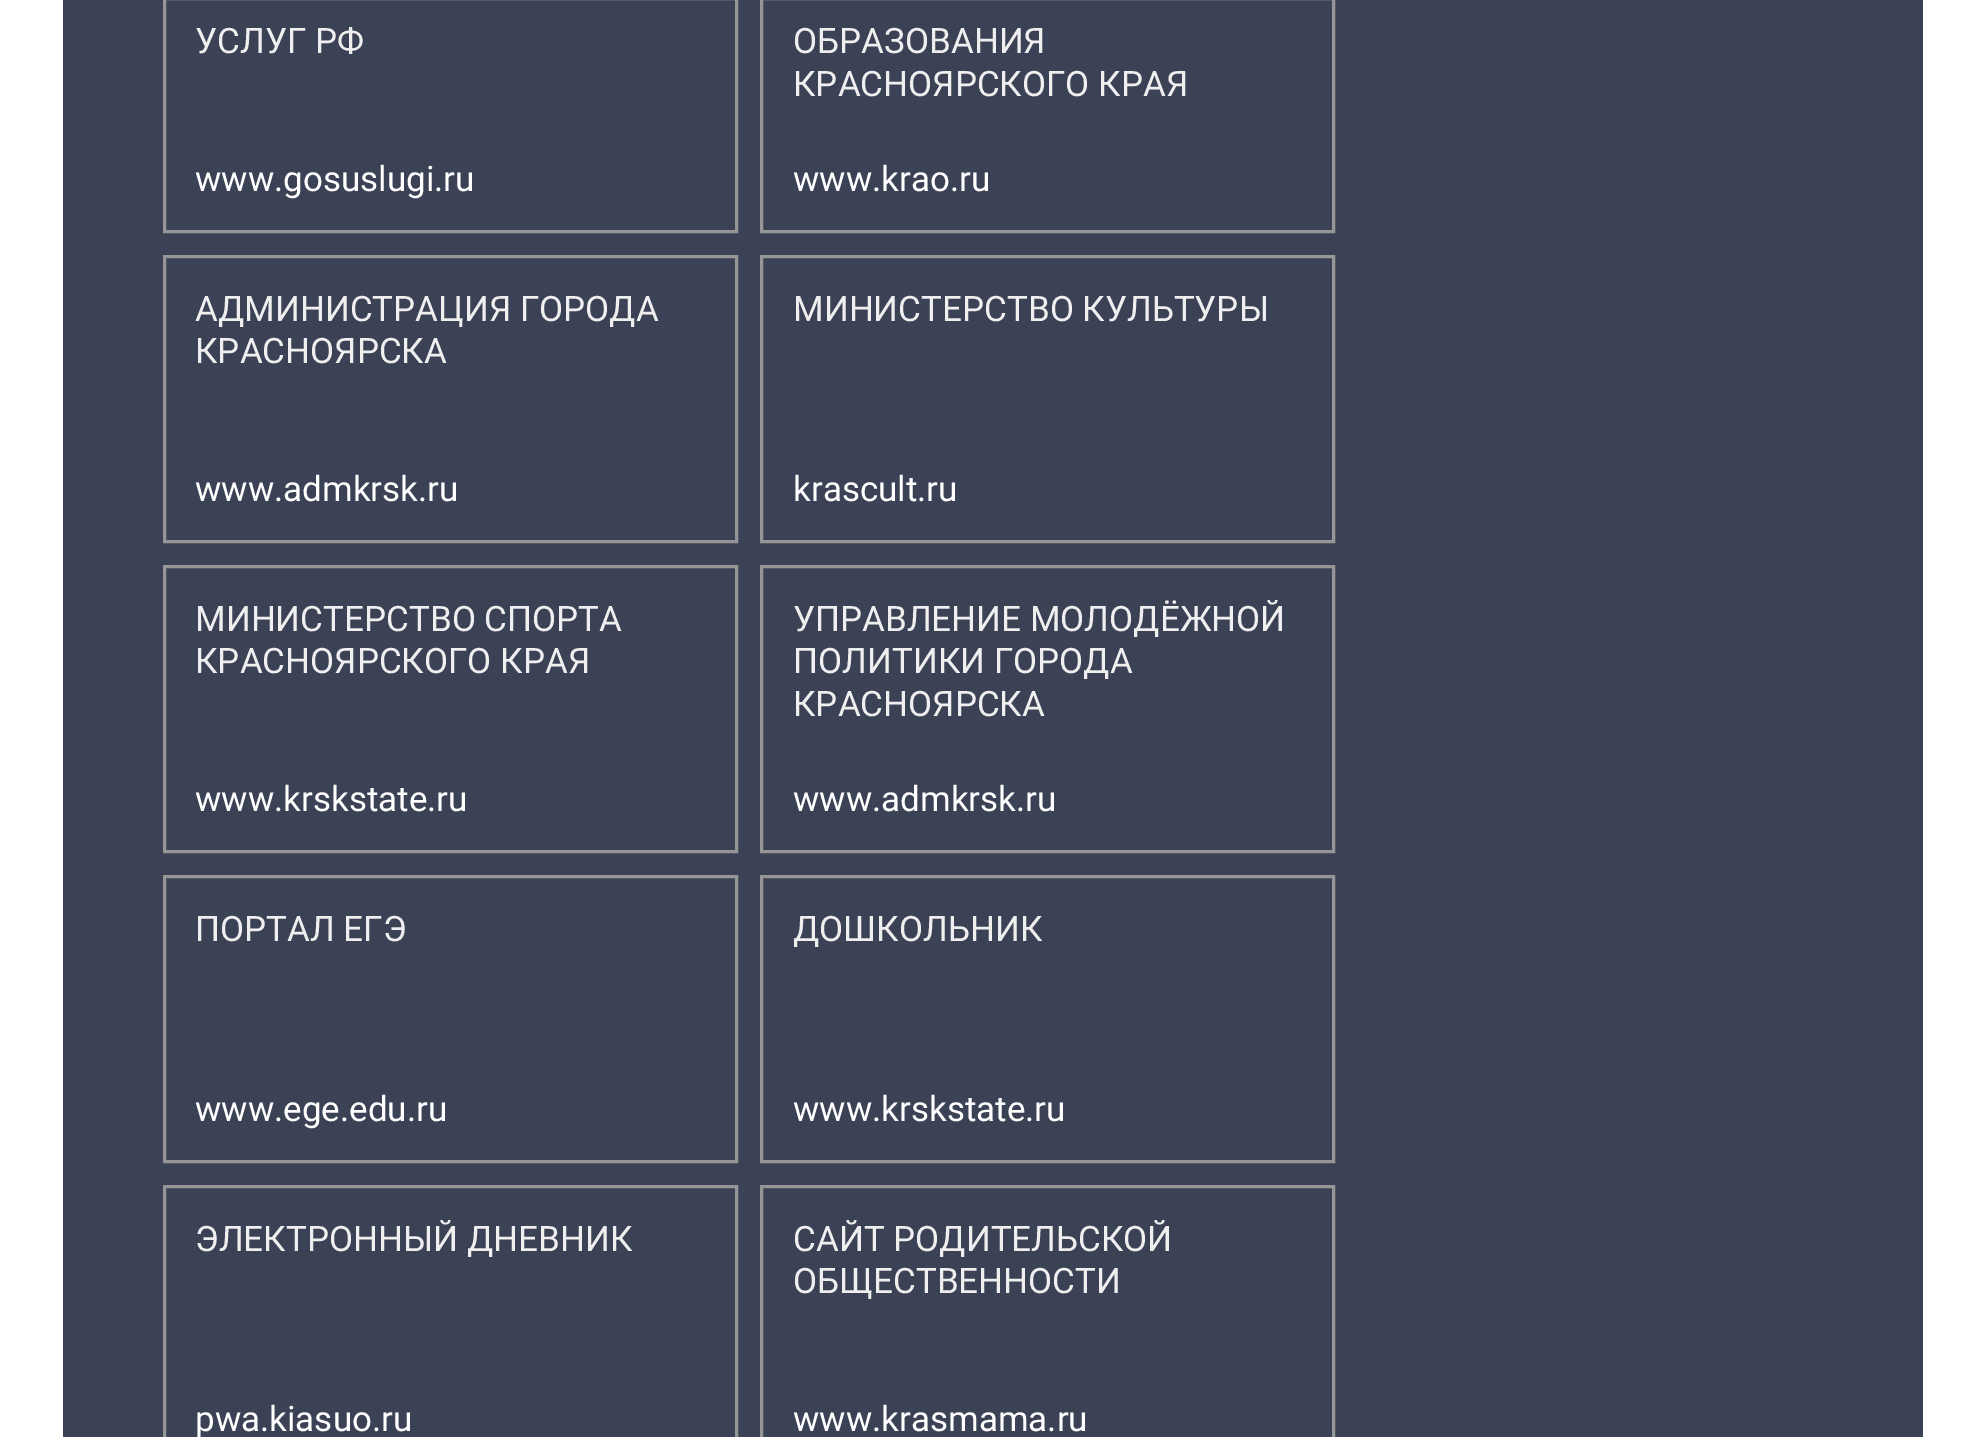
%!PS
<< /PageSize [1983 1437] >> setpagedevice
/rgb { 3 { 255 div 3 1 roll } repeat setrgbcolor } def
/font { [ exch dup neg 0 0 3 -1 roll 0 0 ] selectfont } def
0 1437 translate 1 -1 scale
4 setmiterlimit
255 255 255 rgb
0 0 1983 1437 rectfill
59 66 86 rgb
63 0 1860 1437 rectfill
150 150 150 rgb
3 setlinewidth
164.5 -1.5 572 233 rectstroke
761.5 -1.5 572 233 rectstroke
164.5 256.5 572 285 rectstroke
761.5 256.5 572 285 rectstroke
164.5 566.5 572 285 rectstroke
761.5 566.5 572 285 rectstroke
164.5 876.5 572 285 rectstroke
761.5 876.5 572 285 rectstroke
164.5 1186.5 572 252 rectstroke
761.5 1186.5 572 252 rectstroke
/Roboto-Regular 35 font
239 239 239 rgb
195 53 moveto (УСЛУГ РФ) show
255 255 255 rgb
195 191 moveto (www.gosuslugi.ru) show
239 239 239 rgb
793 53 moveto (ОБРАЗОВАНИЯ) show
793 96 moveto (КРАСНОЯРСКОГО КРАЯ) show
255 255 255 rgb
793 191 moveto (www.krao.ru) show
239 239 239 rgb
195 321 moveto (АДМИНИСТРАЦИЯ ГОРОДА) show
195 363 moveto (КРАСНОЯРСКА) show
255 255 255 rgb
195 501 moveto (www.admkrsk.ru) show
239 239 239 rgb
793 321 moveto (МИНИСТЕРСТВО КУЛЬТУРЫ) show
255 255 255 rgb
793 501 moveto (krascult.ru) show
239 239 239 rgb
195 631 moveto (МИНИСТЕРСТВО СПОРТА) show
195 673 moveto (КРАСНОЯРСКОГО КРАЯ) show
255 255 255 rgb
195 811 moveto (www.krskstate.ru) show
239 239 239 rgb
[
  [(УПРАВЛЕНИЕ МОЛОДЁЖНОЙ) 793 631]
  [(ПОЛИТИКИ ГОРОДА) 793 673]
  [(КРАСНОЯРСКА) 793 716]
] { aload pop moveto show } forall
255 255 255 rgb
793 811 moveto (www.admkrsk.ru) show
239 239 239 rgb
195 941 moveto (ПОРТАЛ ЕГЭ) show
255 255 255 rgb
195 1121 moveto (www.ege.edu.ru) show
239 239 239 rgb
793 941 moveto (ДОШКОЛЬНИК) show
255 255 255 rgb
793 1121 moveto (www.krskstate.ru) show
239 239 239 rgb
195 1251 moveto (ЭЛЕКТРОННЫЙ ДНЕВНИК) show
255 255 255 rgb
195 1431 moveto (pwa.kiasuo.ru) show
239 239 239 rgb
793 1251 moveto (САЙТ РОДИТЕЛЬСКОЙ) show
793 1293 moveto (ОБЩЕСТВЕННОСТИ) show
255 255 255 rgb
793 1431 moveto (www.krasmama.ru) show
showpage
